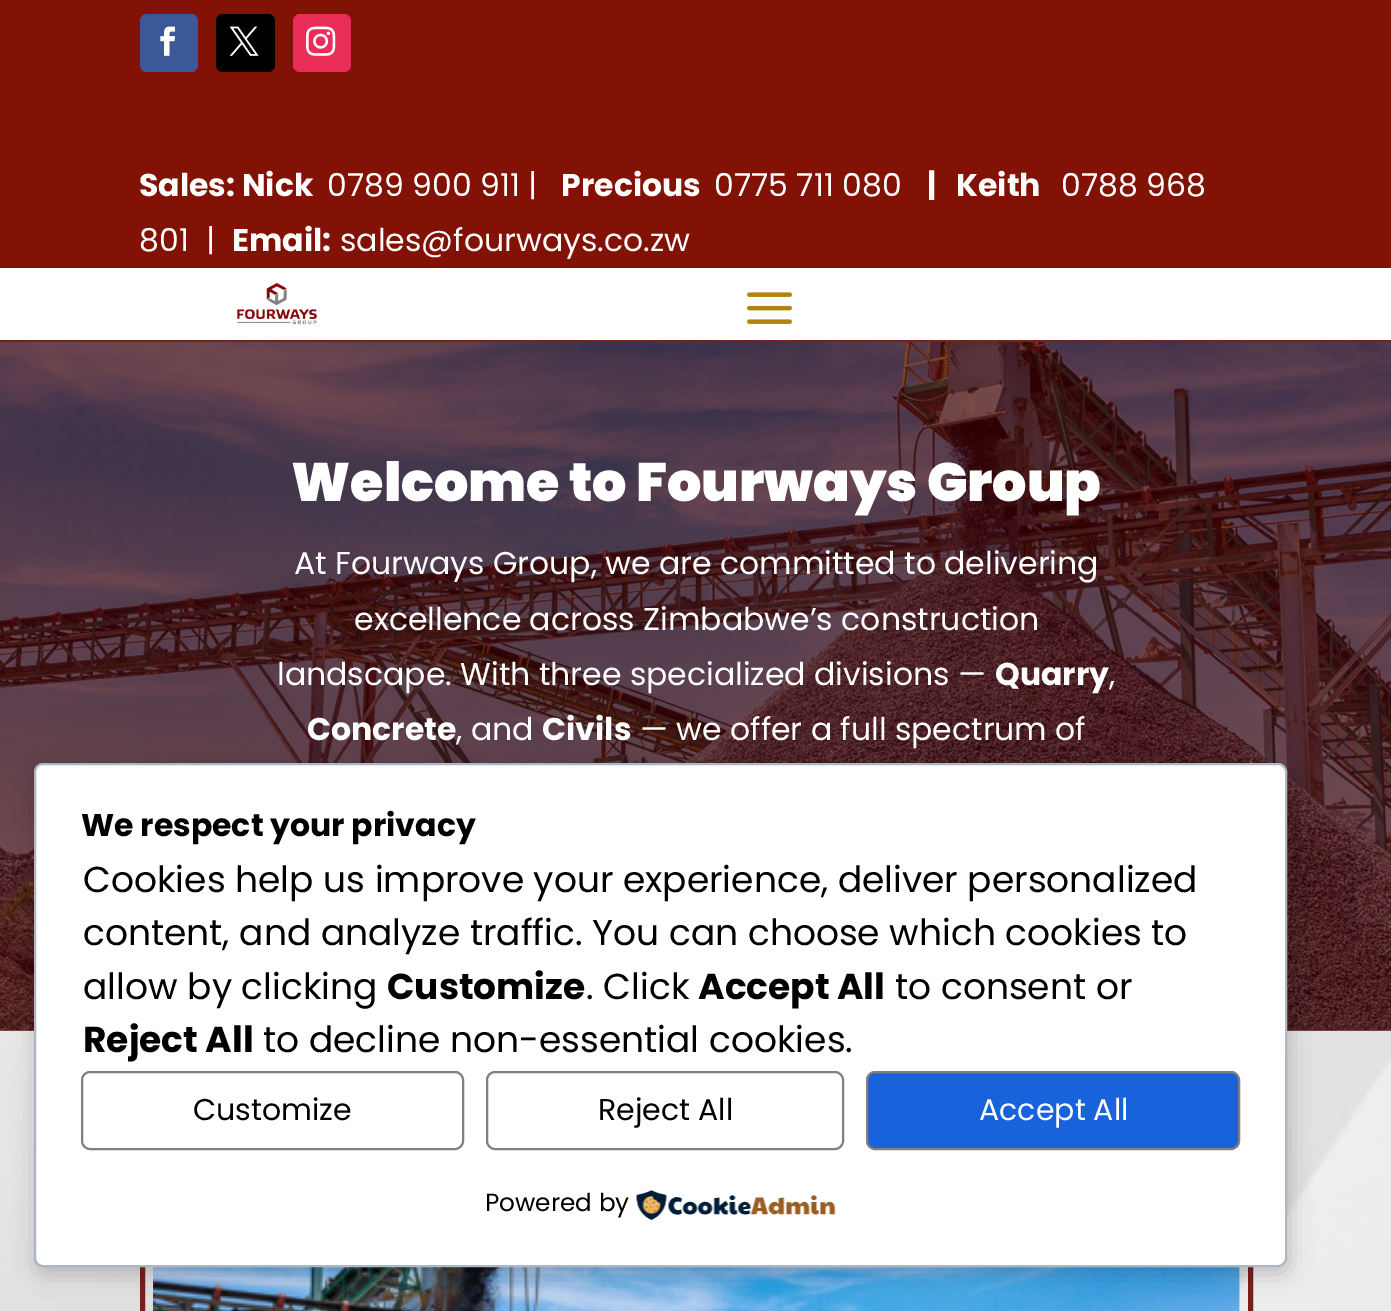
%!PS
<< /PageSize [1391 1311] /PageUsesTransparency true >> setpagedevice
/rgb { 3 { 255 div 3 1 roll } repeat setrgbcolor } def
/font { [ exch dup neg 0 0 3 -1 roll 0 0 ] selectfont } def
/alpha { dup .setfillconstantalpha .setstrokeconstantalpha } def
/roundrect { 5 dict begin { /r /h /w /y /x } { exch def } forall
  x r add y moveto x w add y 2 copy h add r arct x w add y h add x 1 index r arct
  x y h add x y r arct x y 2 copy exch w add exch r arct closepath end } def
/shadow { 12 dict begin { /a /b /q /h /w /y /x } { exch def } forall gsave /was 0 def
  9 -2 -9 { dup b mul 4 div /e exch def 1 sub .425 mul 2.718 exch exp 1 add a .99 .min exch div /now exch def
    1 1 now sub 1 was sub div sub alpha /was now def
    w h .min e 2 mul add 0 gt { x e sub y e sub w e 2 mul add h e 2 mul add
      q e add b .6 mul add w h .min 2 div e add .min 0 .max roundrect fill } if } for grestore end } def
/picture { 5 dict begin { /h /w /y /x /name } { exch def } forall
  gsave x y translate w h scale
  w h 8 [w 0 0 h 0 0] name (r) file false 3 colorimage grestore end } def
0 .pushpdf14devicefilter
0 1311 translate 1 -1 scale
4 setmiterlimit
255 255 255 rgb
0 0 1391 1311 rectfill
130 18 6 rgb
0 0 1391 268 rectfill
59 89 152 rgb
140 14 58 58 7 roundrect fill
(img/1.rgb) 160 26 15 30 picture
0 0 0 rgb
216 14 59 58 7 roundrect fill
(img/2.rgb) 229 26 30 30 picture
234 44 89 rgb
293 14 58 58 7 roundrect fill
(img/3.rgb) 306 26 30 30 picture
121 32 26 rgb
0 340 1391 2 rectfill
(img/4.rgb) 237 283 80 42 picture
(img/5.rgb) 747 292 45 32 picture
(img/6.rgb) 0 342 1391 689 picture
(img/7.rgb) 0 1030 1391 281 picture
0.67 alpha
66 0 1 rgb
0 342 1391 689 rectfill
1 alpha
121 32 26 rgb
5 setlinewidth
142.5 1105.5 1108 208 rectstroke
(img/8.rgb) 153 1267 1087 44 picture
0 0 0 rgb
36 770 1253 504 9 11 0.2 shadow
255 255 255 rgb
35 764 1251 502 8 roundrect gsave fill grestore
171 184 195 rgb
2 setlinewidth
stroke
128 128 128 rgb
82 1072 381 77 8 roundrect stroke
487 1072 356 77 8 roundrect stroke
24 99 220 rgb
867 1072 372 77 8 roundrect gsave fill grestore
128 128 128 rgb
stroke
(img/9.rgb) 636 1190 200 30 picture
/Poppins-Bold 31.5 font
255 255 255 rgb
139 196 moveto (Sales: Nick) show
/Poppins-Regular 31.5 font
327 196 moveto (0789 900 911 |) show
/Poppins-Bold 31.5 font
561 196 moveto (Precious) show
/Poppins-Regular 31.5 font
714 196 moveto (0775 711 080) show
/Poppins-Bold 31.5 font
927 196 moveto (|) show
956 196 moveto (Keith) show
/Poppins-Regular 31.5 font
1061 196 moveto (0788 968) show
139 251 moveto (801  |) show
/Poppins-Bold 31.5 font
232 251 moveto (Email:) show
/Poppins-Regular 31.5 font
340 251 moveto (sales@fourways.co.zw) show
/Poppins-Black 54 font
291 501 moveto (Welcome to Fourways Group) show
/Poppins-Regular 31.5 font
[
  [(At Fourways Group, we are committed to delivering) 294 574]
  [(excellence across Zimbabwe’s construction) 354 630]
  [(landscape. With three specialized divisions —) 277 685]
] { aload pop moveto show } forall
/Poppins-Bold 31.5 font
995 685 moveto (Quarry) show
/Poppins-Regular 31.5 font
1109 685 moveto (,) show
/Poppins-Bold 31.5 font
307 740 moveto (Concrete) show
/Poppins-Regular 31.5 font
456 740 moveto (, and) show
/Poppins-Bold 31.5 font
542 740 moveto (Civils) show
/Poppins-Regular 31.5 font
640 740 moveto (— we offer a full spectrum of) show
/Poppins-Bold 31.5 font
0 0 0 rgb
81 836 moveto (We respect your privacy) show
/Poppins-Regular 36 font
[
  [(Cookies help us improve your experience, deliver personalized) 83 892]
  [(content, and analyze traffic. You can choose which cookies to) 83 945]
  [(allow by clicking) 83 999]
] { aload pop moveto show } forall
/Poppins-Bold 36 font
387 999 moveto (Customize) show
/Poppins-Regular 36 font
586 999 moveto (. Click) show
/Poppins-Bold 36 font
698 999 moveto (Accept All) show
/Poppins-Regular 36 font
895 999 moveto (to consent or) show
/Poppins-Bold 36 font
83 1052 moveto (Reject All) show
/Poppins-Regular 36 font
263 1052 moveto (to decline non-essential cookies.) show
/Poppins-Regular 30 font
193 1120 moveto (Customize) show
598 1120 moveto (Reject All) show
255 255 255 rgb
979 1120 moveto (Accept All) show
/Poppins-Regular 24.75 font
0 0 0 rgb
485 1211 moveto (Powered by) show
.poppdf14devicefilter showpage
